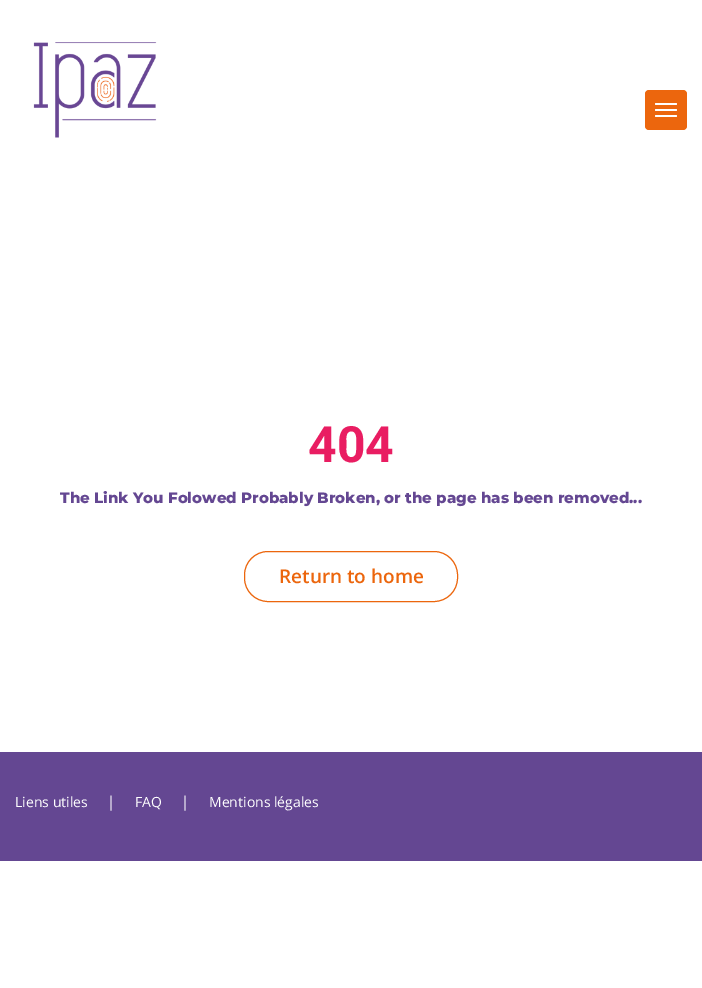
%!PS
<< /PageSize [702 988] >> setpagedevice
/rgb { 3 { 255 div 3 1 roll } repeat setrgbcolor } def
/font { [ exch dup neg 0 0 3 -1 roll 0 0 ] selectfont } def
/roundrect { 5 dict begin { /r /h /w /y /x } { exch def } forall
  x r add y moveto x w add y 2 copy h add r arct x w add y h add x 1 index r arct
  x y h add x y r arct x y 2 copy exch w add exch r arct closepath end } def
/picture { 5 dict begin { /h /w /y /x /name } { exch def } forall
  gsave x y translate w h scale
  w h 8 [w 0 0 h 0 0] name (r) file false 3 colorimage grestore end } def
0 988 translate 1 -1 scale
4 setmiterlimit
255 255 255 rgb
0 0 702 988 rectfill
(img/1.rgb) 33 42 124 96 picture
236 102 13 rgb
645 90 42 40 4 roundrect fill
255 255 255 rgb
655 103 22 2 1 roundrect fill
655 109 22 2 1 roundrect fill
655 115 22 2 1 roundrect fill
236 102 13 rgb
244.5 551.5 213 50 23.5 roundrect stroke
100 71 146 rgb
0 752 702 109 rectfill
/Roboto-Bold 50 font
233 29 98 rgb
308 462 moveto (404) show
/Montserrat-ExtraBold 15 font
100 71 146 rgb
60 503 moveto (The Link You Folowed Probably Broken, or the page has been removed...) show
/OpenSans-SemiBold 19 font
236 102 13 rgb
279 583 moveto (Return to home) show
/OpenSans-Regular 14 font
255 255 255 rgb
15 807 moveto (Liens utiles) show
/OpenSans-Regular 15 font
107 807 moveto (|) show
/OpenSans-Regular 14 font
135 807 moveto (FAQ) show
/OpenSans-Regular 15 font
181 807 moveto (|) show
/OpenSans-Regular 14 font
209 807 moveto (Mentions légales) show
showpage
